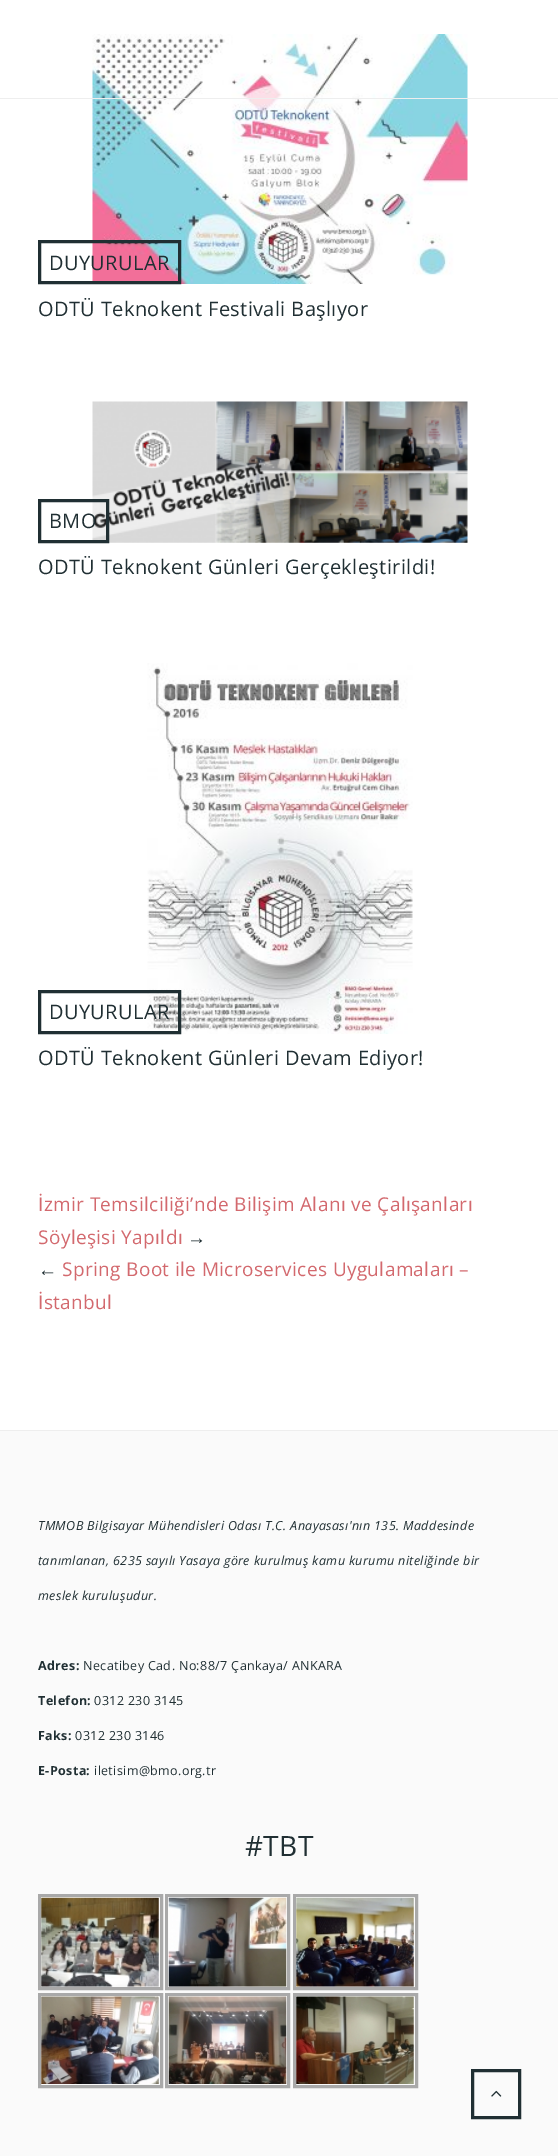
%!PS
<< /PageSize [558 2156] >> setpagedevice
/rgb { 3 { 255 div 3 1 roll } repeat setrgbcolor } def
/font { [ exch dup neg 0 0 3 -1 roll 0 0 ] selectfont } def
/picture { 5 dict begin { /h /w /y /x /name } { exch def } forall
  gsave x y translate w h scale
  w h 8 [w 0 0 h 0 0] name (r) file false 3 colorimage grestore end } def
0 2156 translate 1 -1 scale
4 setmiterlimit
255 255 255 rgb
0 0 558 2156 rectfill
(img/1.rgb) 92 34 376 250 picture
238 238 238 rgb
0 98 558 1 rectfill
32 47 51 rgb
3 setlinewidth
39.5 241.5 140 41 rectstroke
(img/2.rgb) 92 401 376 142 picture
39.5 500.5 68 41 rectstroke
(img/3.rgb) 147 663 266 371 picture
39.5 991.5 140 41 rectstroke
250 250 250 rgb
0 1431 558 725 rectfill
238 238 238 rgb
0 1430 558 1 rectfill
169 169 169 rgb
39.5 1895.5 122 93 rectstroke
(img/4.rgb) 41 1897 118 90 picture
166.5 1895.5 122 93 rectstroke
(img/5.rgb) 168 1897 119 90 picture
294.5 1895.5 122 93 rectstroke
(img/6.rgb) 296 1897 118 90 picture
39.5 1994.5 122 92 rectstroke
(img/7.rgb) 41 1996 118 88 picture
166.5 1994.5 122 92 rectstroke
(img/8.rgb) 168 1996 119 88 picture
294.5 1994.5 122 92 rectstroke
(img/9.rgb) 296 1996 118 88 picture
32 47 51 rgb
472.5 2070.5 47 47 rectstroke
(img/10.rgb) 491 2090 11 7 picture
/OpenSans-Regular 20 font
49 270 moveto 0.38 0 (DUYURULAR) ashow
38 316 moveto 0.38 0 (ODTÜ Teknokent Festivali Başlıyor) ashow
49 528 moveto 0.38 0 (BMO) ashow
38 574 moveto 0.38 0 (ODTÜ Teknokent Günleri Gerçekleştirildi!) ashow
49 1019 moveto 0.38 0 (DUYURULAR) ashow
38 1065 moveto 0.38 0 (ODTÜ Teknokent Günleri Devam Ediyor!) ashow
/OpenSans-Regular 19 font
211 105 110 rgb
38 1211 moveto 0.38 0 (İzmir Temsilciliği’nde Bilişim Alanı ve Çalışanları) ashow
38 1244 moveto 0.38 0 (Söyleşisi Yapıldı) ashow
/LiberationSerif-Regular 19 font
32 47 51 rgb
187 1244 moveto 0.38 0 (→) ashow
38 1276 moveto 0.38 0 (←) ashow
/OpenSans-Regular 19 font
211 105 110 rgb
62 1276 moveto 0.38 0 (Spring Boot ile Microservices Uygulamaları –) ashow
38 1309 moveto 0.38 0 (İstanbul) ashow
/OpenSans-Italic 12.5 font
32 47 51 rgb
38 1530 moveto 0.38 0 (TMMOB Bilgisayar Mühendisleri Odası T.C. Anayasası'nın 135. Maddesinde) ashow
38 1565 moveto 0.38 0 (tanımlanan, 6235 sayılı Yasaya göre kurulmuş kamu kurumu niteliğinde bir) ashow
38 1600 moveto 0.38 0 (meslek kuruluşudur.) ashow
/OpenSans-Bold 12.5 font
38 1670 moveto 0.38 0 (Adres:) ashow
/OpenSans-Regular 12.5 font
83 1670 moveto 0.38 0 (Necatibey Cad. No:88/7 Çankaya/ ANKARA) ashow
/OpenSans-Bold 12.5 font
38 1705 moveto 0.38 0 (Telefon:) ashow
/OpenSans-Regular 12.5 font
94 1705 moveto 0.38 0 (0312 230 3145) ashow
/OpenSans-Bold 12.5 font
38 1740 moveto 0.38 0 (Faks:) ashow
/OpenSans-Regular 12.5 font
75 1740 moveto 0.38 0 (0312 230 3146) ashow
/OpenSans-Bold 12.5 font
38 1775 moveto 0.38 0 (E-Posta:) ashow
/OpenSans-Regular 12.5 font
94 1775 moveto 0.38 0 (iletisim@bmo.org.tr) ashow
/OpenSans-Regular 28 font
245 1856 moveto 0.38 0 (#TBT) ashow
showpage
